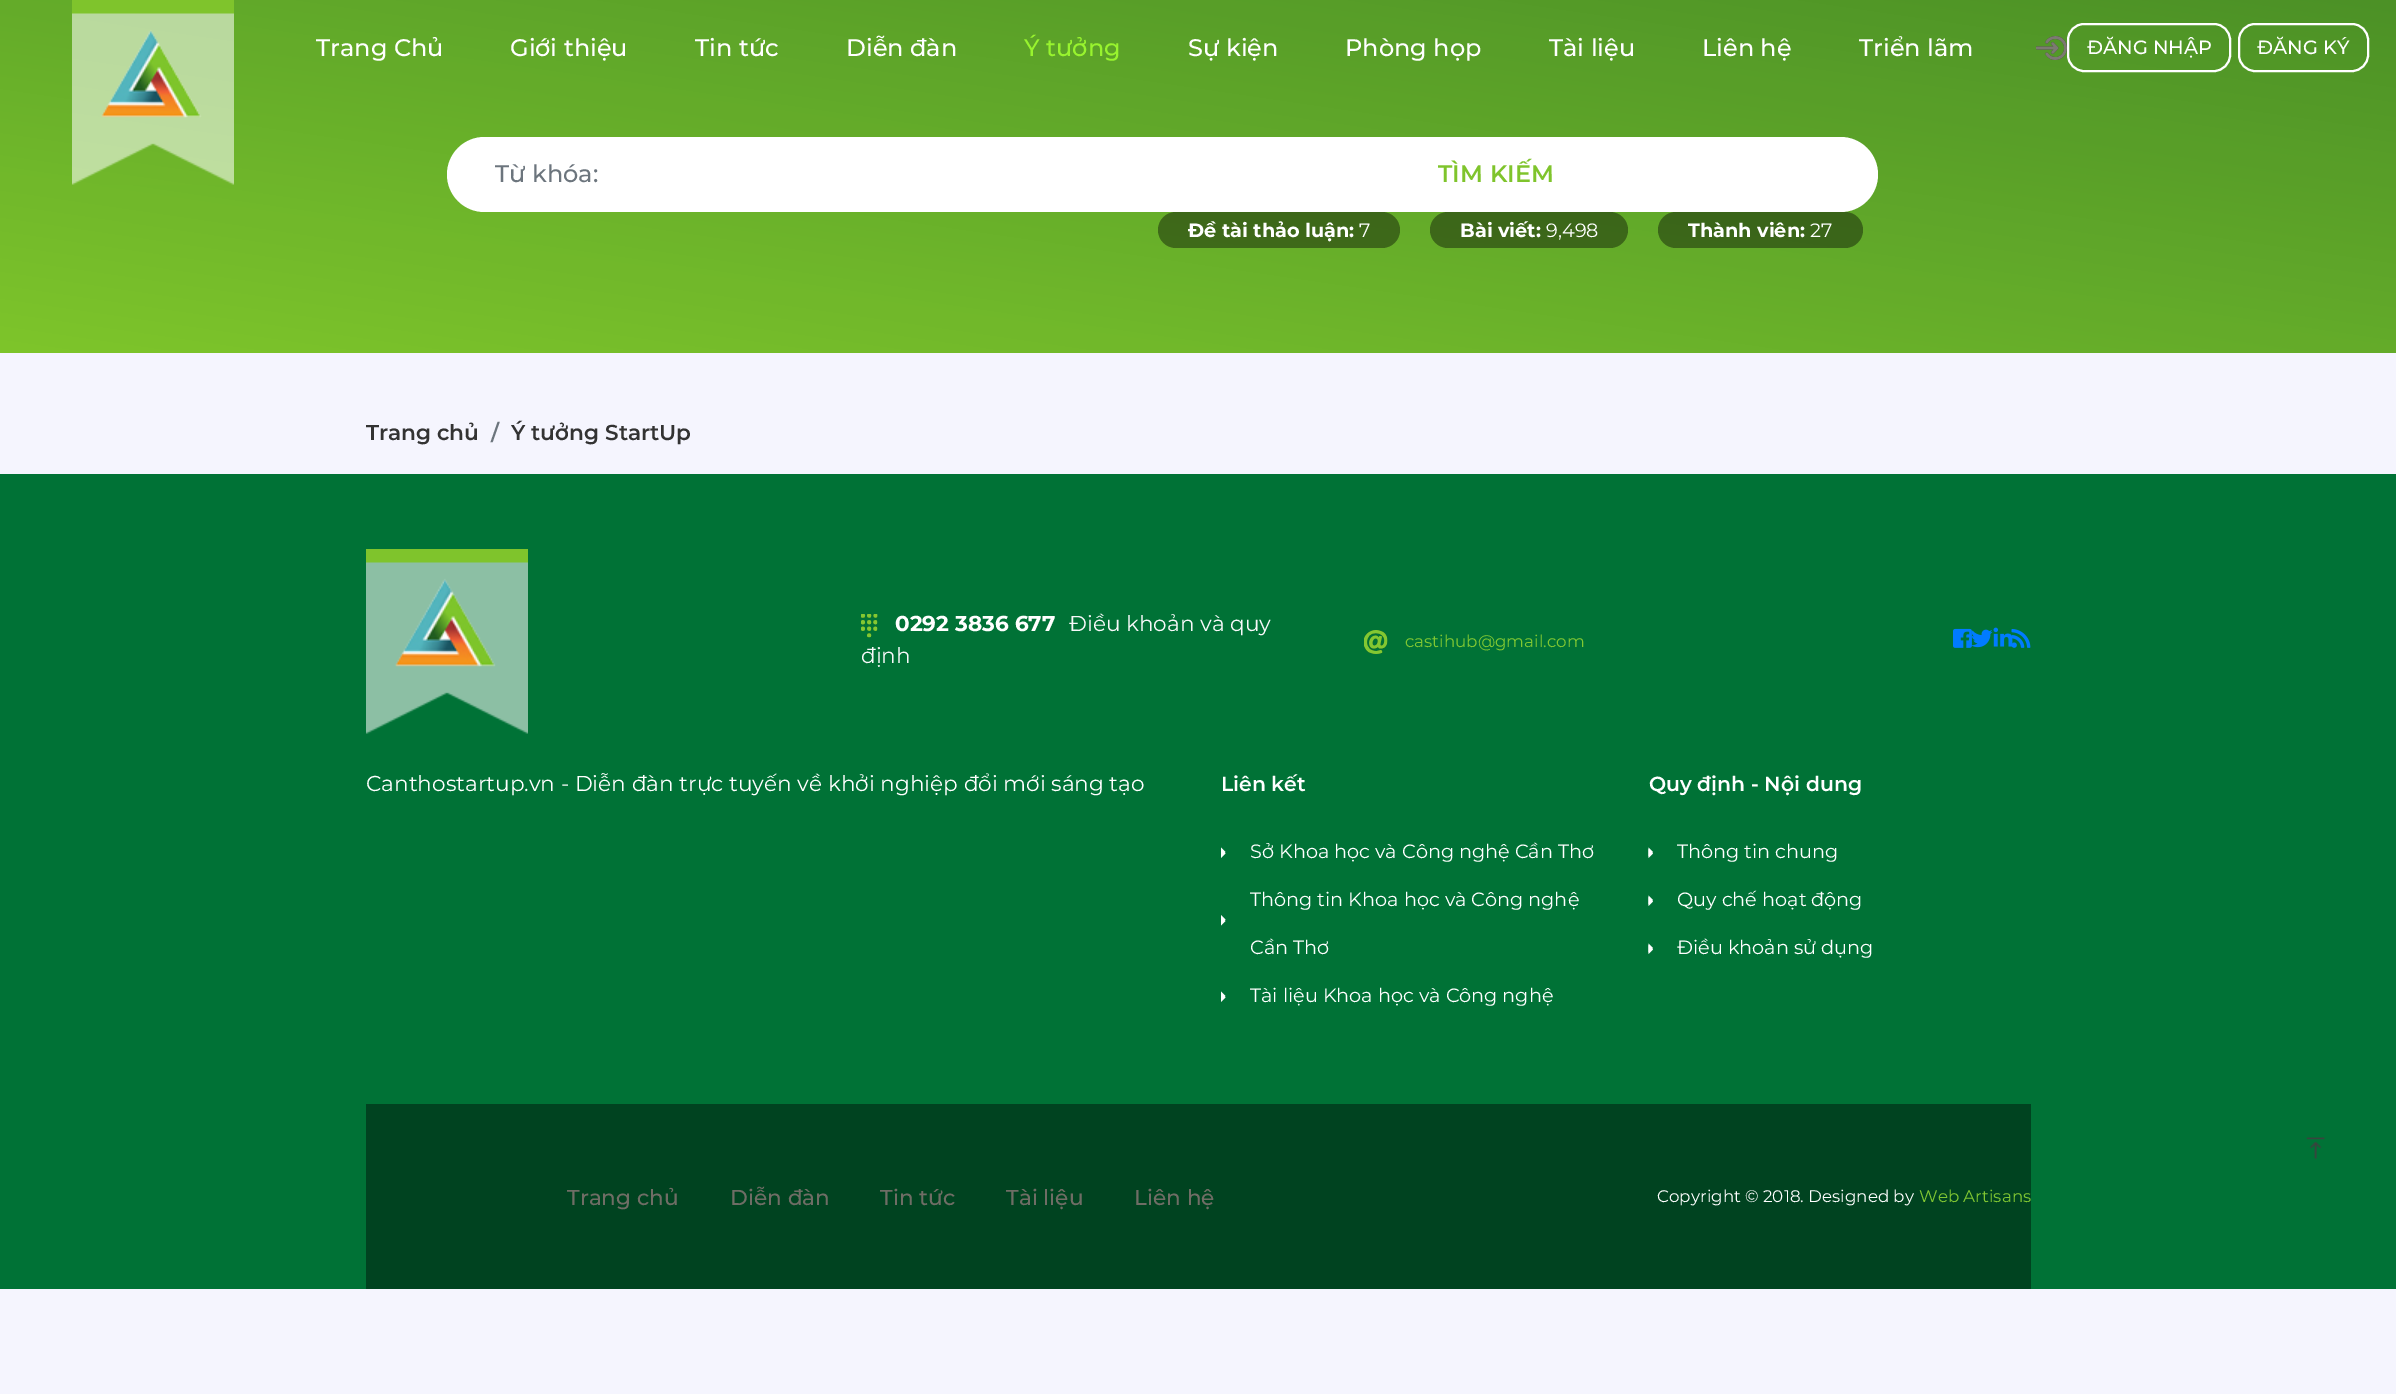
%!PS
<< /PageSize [2396 1394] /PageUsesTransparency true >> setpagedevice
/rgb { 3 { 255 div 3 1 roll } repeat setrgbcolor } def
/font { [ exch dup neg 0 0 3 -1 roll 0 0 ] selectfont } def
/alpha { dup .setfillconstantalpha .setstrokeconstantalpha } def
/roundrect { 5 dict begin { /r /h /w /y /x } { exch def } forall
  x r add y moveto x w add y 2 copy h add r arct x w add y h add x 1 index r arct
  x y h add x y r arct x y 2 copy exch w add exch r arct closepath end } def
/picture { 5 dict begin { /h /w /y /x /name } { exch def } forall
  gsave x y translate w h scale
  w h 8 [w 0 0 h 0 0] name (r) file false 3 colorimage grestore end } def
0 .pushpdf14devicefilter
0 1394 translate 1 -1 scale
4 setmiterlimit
245 245 254 rgb
0 0 2396 1394 rectfill
gsave 0 0 moveto 2396 0 lineto 2396 353 lineto 0 353 lineto closepath clip newpath
<< /ShadingType 2 /ColorSpace /DeviceRGB /Coords [1148 521 1249 -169] /Extend [true true] /Function << /FunctionType 3 /Domain [0 1] /Functions [<< /FunctionType 2 /Domain [0 1] /C0 [0.494 0.773 0.169] /C1 [0.443 0.722 0.165] /N 1 >> << /FunctionType 2 /Domain [0 1] /C0 [0.443 0.722 0.165] /C1 [0.392 0.671 0.161] /N 1 >> << /FunctionType 2 /Domain [0 1] /C0 [0.392 0.671 0.161] /C1 [0.345 0.62 0.157] /N 1 >> << /FunctionType 2 /Domain [0 1] /C0 [0.345 0.62 0.157] /C1 [0.298 0.569 0.149] /N 1 >>] /Bounds [0.25 0.5 0.75] /Encode [0 1 0 1 0 1 0 1] >> >> shfill grestore
(img/1.rgb) 72 0 162 185 picture
(img/2.rgb) 2036 36 31 24 picture
255 255 255 rgb
2 setlinewidth
2068 24 162 47 16 roundrect stroke
2239 24 129 47 16 roundrect stroke
447 137 1431 75 37.5 roundrect fill
477 137 899 75 8 roundrect fill
0.4 alpha
0 0 0 rgb
1158 212 242 36 18 roundrect fill
1430 212 198 36 18 roundrect fill
1658 212 205 36 18 roundrect fill
1 alpha
0 114 54 rgb
0 474 2396 815 rectfill
(img/3.rgb) 366 549 162 185 picture
(img/4.rgb) 861 614 17 24 picture
(img/5.rgb) 1364 630 24 24 picture
(img/6.rgb) 1953 628 19 20 picture
(img/7.rgb) 1971 629 22 19 picture
(img/8.rgb) 1993 627 20 20 picture
(img/9.rgb) 2011 629 20 19 picture
255 255 255 rgb
1221 856.5 moveto 1221 847.5 lineto 1225.5 852 lineto closepath fill
1221 858 moveto 1221 849 lineto 1225.5 853.5 lineto closepath fill
1221 924 moveto 1221 915 lineto 1225.5 919.5 lineto closepath fill
1221 925.5 moveto 1221 916.5 lineto 1225.5 921 lineto closepath fill
1221 1000.5 moveto 1221 991.5 lineto 1225.5 996 lineto closepath fill
1221 1002 moveto 1221 993 lineto 1225.5 997.5 lineto closepath fill
1648.5 856.5 moveto 1648.5 847.5 lineto 1653 852 lineto closepath fill
1648.5 858 moveto 1648.5 849 lineto 1653 853.5 lineto closepath 1648.5 904.5 moveto 1648.5 895.5 lineto 1653 900 lineto closepath fill
1648.5 906 moveto 1648.5 897 lineto 1653 901.5 lineto closepath 1648.5 952.5 moveto 1648.5 943.5 lineto 1653 948 lineto closepath fill
1648.5 954 moveto 1648.5 945 lineto 1653 949.5 lineto closepath fill
0 67 32 rgb
366 1104 1665 185 rectfill
(img/10.rgb) 2306 1137 19 23 picture
/Montserrat-Medium 24 font
255 255 255 rgb
[
  [(Trang Chủ) 316 56]
  [(Giới thiệu) 510 56]
  [(Tin tức) 695 56]
  [(Diễn đàn) 846 56]
] { aload pop moveto show } forall
152 244 46 rgb
1024 56 moveto (Ý tưởng) show
255 255 255 rgb
[
  [(Sự kiện) 1188 56]
  [(Phòng họp) 1345 56]
  [(Tài liệu) 1549 56]
  [(Liên hệ) 1702 56]
  [(Triển lãm) 1859 56]
] { aload pop moveto show } forall
/Montserrat-Medium 19.25 font
2087 54 moveto (ĐĂNG NHẬP) show
2257 54 moveto (ĐĂNG KÝ) show
/Montserrat-Medium 24 font
108 117 125 rgb
495 182 moveto (Từ khóa:) show
/Montserrat-SemiBold 24 font
127 196 44 rgb
1438 182 moveto (TÌM KIẾM) show
/Montserrat-Bold 19.25 font
255 255 255 rgb
1188 237 moveto (Đề tài thảo luận:) show
/Montserrat-Regular 19.25 font
1359 237 moveto (7) show
/Montserrat-Bold 19.25 font
1460 237 moveto (Bài viết:) show
/Montserrat-Regular 19.25 font
1546 237 moveto (9,498) show
/Montserrat-Bold 19.25 font
1688 237 moveto (Thành viên:) show
/Montserrat-Regular 19.25 font
1810 237 moveto (27) show
/Montserrat-SemiBold 21.6 font
51 51 51 rgb
366 440 moveto (Trang chủ) show
108 117 125 rgb
491 440 moveto (/) show
51 51 51 rgb
511 440 moveto (Ý tưởng StartUp) show
/Montserrat-Bold 21.6 font
255 255 255 rgb
895 631 moveto (0292 3836 677) show
/Montserrat-Regular 21.6 font
248 249 250 rgb
1069 631 moveto (Điều khoản và quy) show
861 663 moveto (định) show
/Montserrat-Regular 16.75 font
130 200 50 rgb
1405 647 moveto (castihub@gmail.com) show
/Montserrat-Regular 21.6 font
255 255 255 rgb
366 791 moveto (Canthostartup.vn - Diễn đàn trực tuyến về khởi nghiệp đổi mới sáng tạo) show
/Montserrat-SemiBold 20.4 font
1221 791 moveto (Liên kết) show
/Montserrat-Regular 19.25 font
[
  [(Sở Khoa học và Công nghệ Cần Thơ) 1250 858]
  [(Thông tin Khoa học và Công nghệ) 1250 906]
  [(Cần Thơ) 1250 954]
  [(Tài liệu Khoa học và Công nghệ) 1250 1002]
] { aload pop moveto show } forall
/Montserrat-SemiBold 20.4 font
1649 791 moveto (Quy định - Nội dung) show
/Montserrat-Regular 19.25 font
[
  [(Thông tin chung) 1677 858]
  [(Quy chế hoạt động) 1677 906]
  [(Điều khoản sử dụng) 1677 954]
] { aload pop moveto show } forall
/Montserrat-Medium 21.6 font
111 109 101 rgb
[
  [(Trang chủ) 567 1205]
  [(Diễn đàn) 730 1205]
  [(Tin tức) 880 1205]
  [(Tài liệu) 1006 1205]
  [(Liên hệ) 1134 1205]
] { aload pop moveto show } forall
/Montserrat-Regular 16.75 font
255 255 255 rgb
1657 1202 moveto (Copyright © 2018. Designed by) show
130 200 50 rgb
1919 1202 moveto (Web Artisans) show
.poppdf14devicefilter showpage
